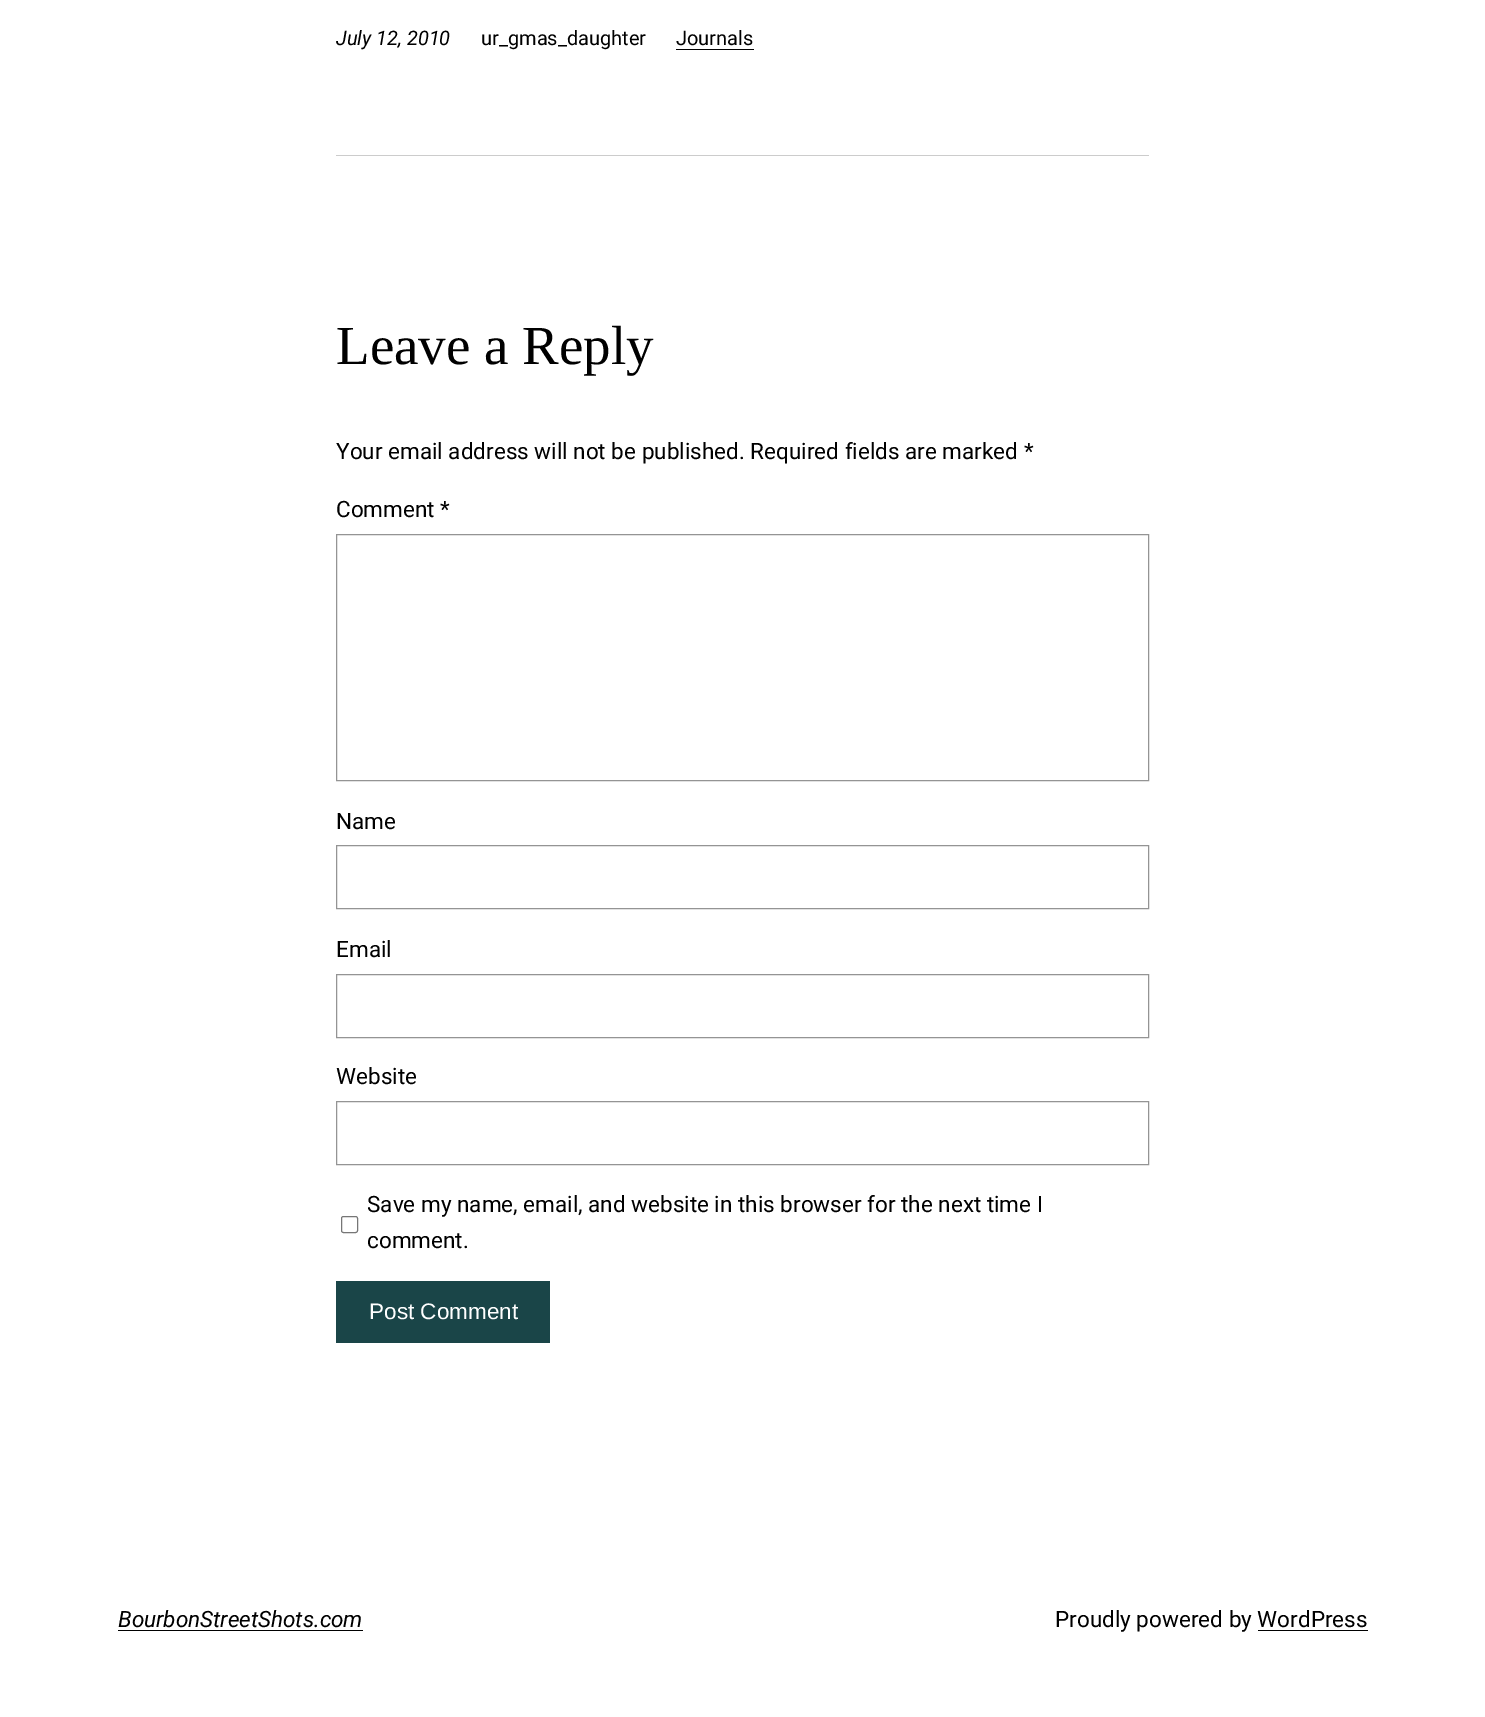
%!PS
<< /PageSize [1485 1717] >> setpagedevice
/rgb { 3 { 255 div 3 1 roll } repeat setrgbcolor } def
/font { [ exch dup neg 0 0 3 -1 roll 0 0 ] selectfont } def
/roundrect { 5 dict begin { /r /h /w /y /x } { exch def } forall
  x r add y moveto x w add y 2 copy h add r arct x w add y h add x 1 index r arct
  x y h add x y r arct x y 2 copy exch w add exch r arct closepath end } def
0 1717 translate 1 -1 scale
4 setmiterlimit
255 255 255 rgb
0 0 1485 1717 rectfill
0 0 0 rgb
676 49 78 1 rectfill
204 204 204 rgb
336 155 813 1 rectfill
148 148 148 rgb
336.5 534.5 812 246 rectstroke
336.5 845.5 812 63 rectstroke
336.5 974.5 812 63 rectstroke
336.5 1101.5 812 63 rectstroke
118 118 118 rgb
341.5 1216.5 16 16 2 roundrect stroke
[
  [336 1281 214 62 26 69 72]
  [118 1630 245 1 0 0 0]
  [1258 1630 110 1 0 0 0]
] { aload pop rgb rectfill } forall
/Roboto-Italic 20 font
336 45 moveto (July 12, 2010) show
/Roboto-Regular 20 font
481 45 moveto (ur_gmas_daughter) show
676 45 moveto (Journals) show
/LiberationSerif-Regular 55 font
336 364 moveto (Leave a Reply) show
/Roboto-Regular 22.5 font
[
  [(Your email address will not be published. Required fields are marked *) 336 459]
  [(Comment *) 336 517]
  [(Name) 336 829]
  [(Email) 336 957]
  [(Website) 336 1084]
  [(Save my name, email, and website in this browser for the next time I) 367 1212]
  [(comment.) 367 1248]
] { aload pop moveto show } forall
/LiberationSans-Regular 22.5 font
255 255 255 rgb
369 1319 moveto (Post Comment) show
/Roboto-Italic 22.5 font
0 0 0 rgb
118 1627 moveto (BourbonStreetShots.com) show
/Roboto-Regular 22.5 font
1055 1627 moveto (Proudly powered by WordPress) show
showpage
